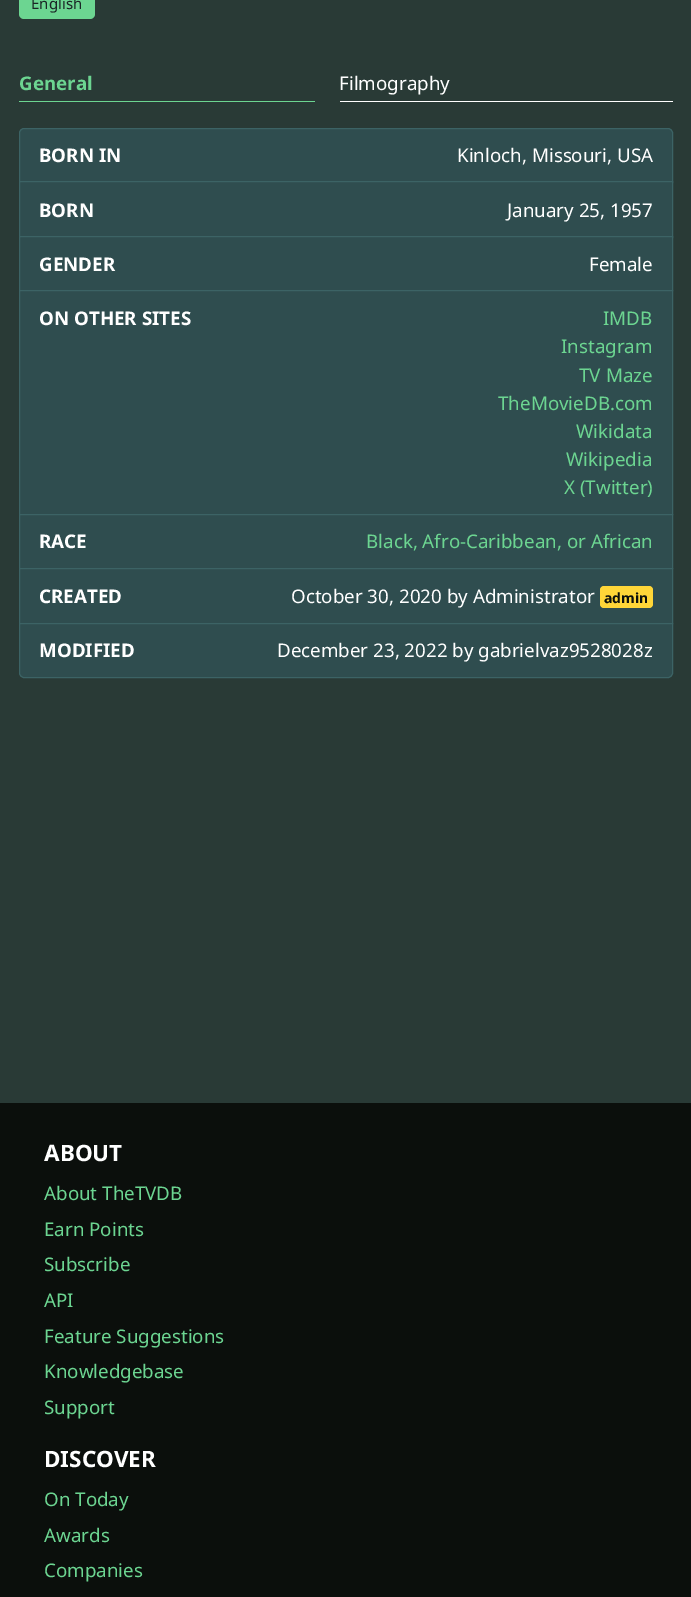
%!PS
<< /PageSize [691 1597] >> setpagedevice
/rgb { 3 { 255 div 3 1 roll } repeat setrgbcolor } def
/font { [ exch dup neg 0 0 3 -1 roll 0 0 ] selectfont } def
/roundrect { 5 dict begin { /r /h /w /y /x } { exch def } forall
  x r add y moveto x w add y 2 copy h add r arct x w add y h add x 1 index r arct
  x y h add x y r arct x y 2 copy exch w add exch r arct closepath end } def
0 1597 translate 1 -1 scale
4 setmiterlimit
41 58 54 rgb
0 0 691 1597 rectfill
108 213 145 rgb
19 -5 76 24 5 roundrect fill
19 101 296 1 rectfill
255 255 255 rgb
340 101 333 1 rectfill
47 77 79 rgb
24 128.5 moveto 668 128.5 lineto 670.5 128.5 672.5 130.5 672.5 133 curveto 672.5 182.5 lineto 19.5 182.5 lineto 19.5 133 lineto 19.5 130.5 21.5 128.5 24 128.5 curveto closepath gsave fill grestore
60 99 101 rgb
stroke
47 77 79 rgb
20 182 652 54 rectfill
60 99 101 rgb
19.5 181.5 653 56 rectstroke
47 77 79 rgb
19.5 236.5 moveto 672.5 236.5 lineto 672.5 290.5 lineto 19.5 290.5 lineto closepath gsave fill grestore
60 99 101 rgb
stroke
47 77 79 rgb
19.5 290.5 moveto 672.5 290.5 lineto 672.5 514.5 lineto 19.5 514.5 lineto closepath gsave fill grestore
60 99 101 rgb
stroke
47 77 79 rgb
19.5 514.5 moveto 672.5 514.5 lineto 672.5 568.5 lineto 19.5 568.5 lineto closepath gsave fill grestore
60 99 101 rgb
stroke
47 77 79 rgb
19.5 568.5 moveto 672.5 568.5 lineto 672.5 623.5 lineto 19.5 623.5 lineto closepath gsave fill grestore
60 99 101 rgb
stroke
255 214 56 rgb
600 586 53 22 4 roundrect fill
47 77 79 rgb
19.5 623.5 moveto 672.5 623.5 lineto 672.5 673 lineto 672.5 675.5 670.5 677.5 668 677.5 curveto 24 677.5 lineto 21.5 677.5 19.5 675.5 19.5 673 curveto closepath gsave fill grestore
60 99 101 rgb
stroke
11 15 12 rgb
0 1103 691 494 rectfill
/NotoSans-Regular 15 font
27 38 38 rgb
31 9 moveto (English) show
/NotoSans-Bold 18.75 font
108 213 145 rgb
19 90 moveto (General) show
/NotoSans-Regular 18.75 font
255 255 255 rgb
339 90 moveto (Filmography) show
/NotoSans-Bold 18.75 font
39 162 moveto (BORN IN) show
/NotoSans-Regular 18.75 font
457 162 moveto (Kinloch, Missouri, USA) show
/NotoSans-Bold 18.75 font
39 217 moveto (BORN) show
/NotoSans-Regular 18.75 font
507 217 moveto (January 25, 1957) show
/NotoSans-Bold 18.75 font
39 271 moveto (GENDER) show
/NotoSans-Regular 18.75 font
589 271 moveto (Female) show
/NotoSans-Bold 18.75 font
39 325 moveto (ON OTHER SITES) show
/NotoSans-Regular 18.75 font
108 213 145 rgb
[
  [(IMDB) 603 325]
  [(Instagram) 561 353]
  [(TV Maze) 579 382]
  [(TheMovieDB.com) 498 410]
  [(Wikidata) 576 438]
  [(Wikipedia) 566 466]
  [(X \(Twitter\)) 564 494]
] { aload pop moveto show } forall
/NotoSans-Bold 18.75 font
255 255 255 rgb
39 548 moveto (RACE) show
/NotoSans-Regular 18.75 font
108 213 145 rgb
366 548 moveto (Black, Afro-Caribbean, or African) show
/NotoSans-Bold 18.75 font
255 255 255 rgb
39 603 moveto (CREATED) show
/NotoSans-Regular 18.75 font
291 603 moveto (October 30, 2020 by Administrator) show
/NotoSans-Bold 14 font
11 15 12 rgb
604 603 moveto (admin) show
/NotoSans-Bold 18.75 font
255 255 255 rgb
39 657 moveto (MODIFIED) show
/NotoSans-Regular 18.75 font
277 657 moveto (December 23, 2022 by gabrielvaz9528028z) show
/NotoSans-Bold 22.5 font
44 1161 moveto (ABOUT) show
/NotoSans-Regular 18.75 font
108 213 145 rgb
[
  [(About TheTVDB) 44 1200]
  [(Earn Points) 44 1236]
  [(Subscribe) 44 1271]
  [(API) 44 1307]
  [(Feature Suggestions) 44 1343]
  [(Knowledgebase) 44 1378]
  [(Support) 44 1414]
] { aload pop moveto show } forall
/NotoSans-Bold 22.5 font
255 255 255 rgb
44 1467 moveto (DISCOVER) show
/NotoSans-Regular 18.75 font
108 213 145 rgb
[
  [(On Today) 44 1506]
  [(Awards) 44 1542]
  [(Companies) 44 1577]
] { aload pop moveto show } forall
showpage
